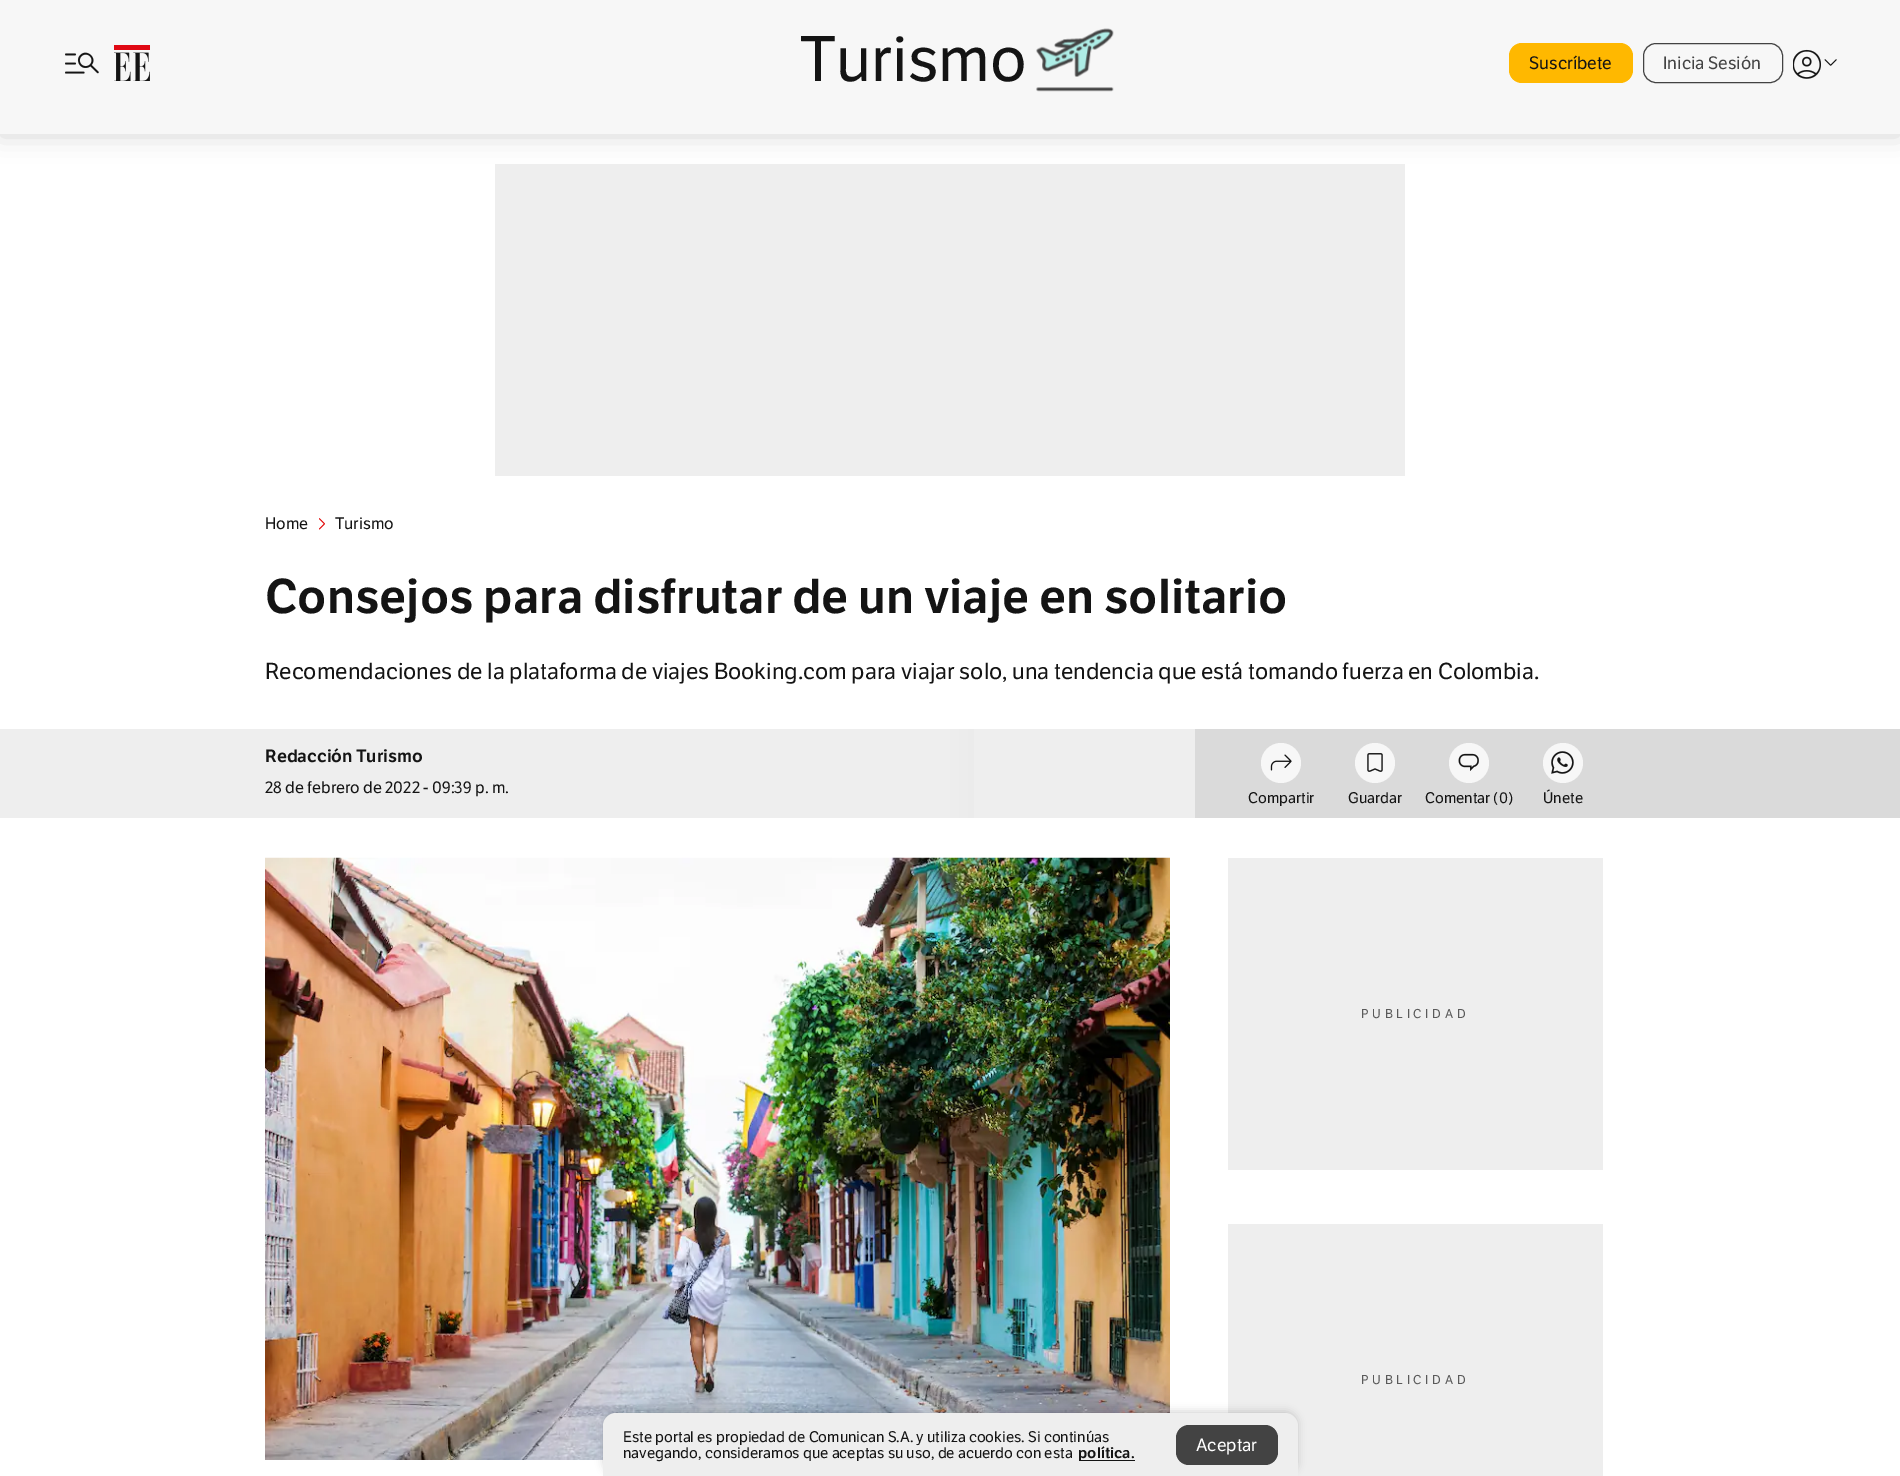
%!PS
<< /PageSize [1900 1476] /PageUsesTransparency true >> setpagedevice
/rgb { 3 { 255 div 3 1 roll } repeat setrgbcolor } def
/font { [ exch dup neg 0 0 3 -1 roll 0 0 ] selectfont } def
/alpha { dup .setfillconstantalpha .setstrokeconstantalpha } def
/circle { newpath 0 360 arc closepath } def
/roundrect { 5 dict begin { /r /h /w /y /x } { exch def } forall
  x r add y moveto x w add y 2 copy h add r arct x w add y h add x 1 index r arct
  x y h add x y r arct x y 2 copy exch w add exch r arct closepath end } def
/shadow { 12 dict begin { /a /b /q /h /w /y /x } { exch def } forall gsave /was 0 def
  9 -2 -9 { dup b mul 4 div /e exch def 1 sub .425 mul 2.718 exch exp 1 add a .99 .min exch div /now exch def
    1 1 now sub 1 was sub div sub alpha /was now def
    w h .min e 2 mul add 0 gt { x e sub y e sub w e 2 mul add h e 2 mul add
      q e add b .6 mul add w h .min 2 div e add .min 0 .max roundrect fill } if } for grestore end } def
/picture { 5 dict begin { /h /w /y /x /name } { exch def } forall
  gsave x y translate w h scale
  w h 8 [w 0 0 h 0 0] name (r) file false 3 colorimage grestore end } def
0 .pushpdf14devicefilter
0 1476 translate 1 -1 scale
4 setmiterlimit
255 255 255 rgb
0 0 1900 1476 rectfill
238 238 238 rgb
495 164 910 312 rectfill
0 0 0 rgb
0 3 1900 133 0 12.5 0.16 shadow
247 247 247 rgb
0 0 1900 134 rectfill
(img/1.rgb) 65 52 34 22 picture
(img/2.rgb) 114 45 36 36 picture
(img/3.rgb) 1036 28 78 64 picture
255 184 0 rgb
1509 43 124 40 13 roundrect fill
67 67 67 rgb
1643.5 43.5 139 39 12.5 roundrect stroke
(img/4.rgb) 1793 49 28 30 picture
(img/5.rgb) 1824 59 13 7 picture
(img/6.rgb) 319 518 6 12 picture
gsave 0 729 moveto 1900 729 lineto 1900 818 lineto 0 818 lineto closepath clip newpath
<< /ShadingType 2 /ColorSpace /DeviceRGB /Coords [0 773 1900 773] /Extend [true true] /Function << /FunctionType 3 /Domain [0 1] /Functions [<< /FunctionType 2 /Domain [0 1] /C0 [0.933 0.933 0.933] /C1 [0.933 0.933 0.933] /N 1 >> << /FunctionType 2 /Domain [0 1] /C0 [0.933 0.933 0.933] /C1 [0.855 0.855 0.855] /N 1 >> << /FunctionType 2 /Domain [0 1] /C0 [0.855 0.855 0.855] /C1 [0.855 0.855 0.855] /N 1 >>] /Bounds [0.5 0.6] /Encode [0 1 0 1 0 1] >> >> shfill grestore
238 238 238 rgb
974 729 221 89 rectfill
247 247 247 rgb
1281 763 20 circle fill
(img/7.rgb) 1270 754 22 17 picture
1375 763 20 circle fill
(img/8.rgb) 1367 753 16 19 picture
1469 763 20 circle fill
(img/9.rgb) 1458 753 21 18 picture
1563 763 20 circle fill
(img/10.rgb) 1551 751 23 23 picture
(img/11.rgb) 265 857 905 603 picture
238 238 238 rgb
1228 858 375 312 rectfill
1228 1224 375 252 rectfill
0 0 0 rgb
603 1411 695 64 13 4 0.16 shadow
238 238 238 rgb
616 1413 moveto 1285 1413 lineto 1292 1413 1298 1419 1298 1426 curveto 1298 1476 lineto 603 1476 lineto 603 1426 lineto 603 1419 609 1413 616 1413 curveto closepath fill
20 20 20 rgb
1079 1460 56 1 rectfill
67 67 67 rgb
1176 1425 102 40 13 roundrect fill
/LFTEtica-Regular 62.5 font
20 20 20 rgb
800 81 moveto (Turismo) show
/LFTEtica-Regular 17.5 font
1529 69 moveto (Suscríbete) show
67 67 67 rgb
1663 69 moveto (Inicia Sesión) show
/LFTEtica-Regular 16.25 font
20 20 20 rgb
265 529 moveto (Home) show
335 529 moveto (Turismo) show
/LFTEtica-SemiBold 47.5 font
265 613 moveto (Consejos para disfrutar de un viaje en solitario) show
/LFTEtica-Regular 22.5 font
265 679 moveto (Recomendaciones de la plataforma de viajes Booking.com para viajar solo, una tendencia que está tomando fuerza en Colombia.) show
/LFTEtica-SemiBold 17.5 font
265 762 moveto (Redacción Turismo) show
/LFTEtica-Regular 16.25 font
265 793 moveto (28 de febrero de 2022 - 09:39 p. m.) show
/LFTEtica-Regular 15 font
[
  [(Compartir) 1248 803]
  [(Guardar) 1348 803]
  [(Comentar \(0\)) 1425 803]
  [(Únete) 1543 803]
] { aload pop moveto show } forall
/LFTEtica-Regular 12.5 font
90 90 90 rgb
1361 1018 moveto 3.75 0 (PUBLICIDAD) ashow
1361 1384 moveto 3.75 0 (PUBLICIDAD) ashow
/LFTEtica-Regular 15 font
20 20 20 rgb
623 1442 moveto (Este portal es propiedad de Comunican S.A. y utiliza cookies. Si continúas) show
623 1458 moveto (navegando, consideramos que aceptas su uso, de acuerdo con esta) show
/LFTEtica-SemiBold 15 font
1078 1458 moveto (política.) show
/LFTEtica-Regular 17.5 font
255 255 255 rgb
1196 1451 moveto (Aceptar) show
.poppdf14devicefilter showpage
